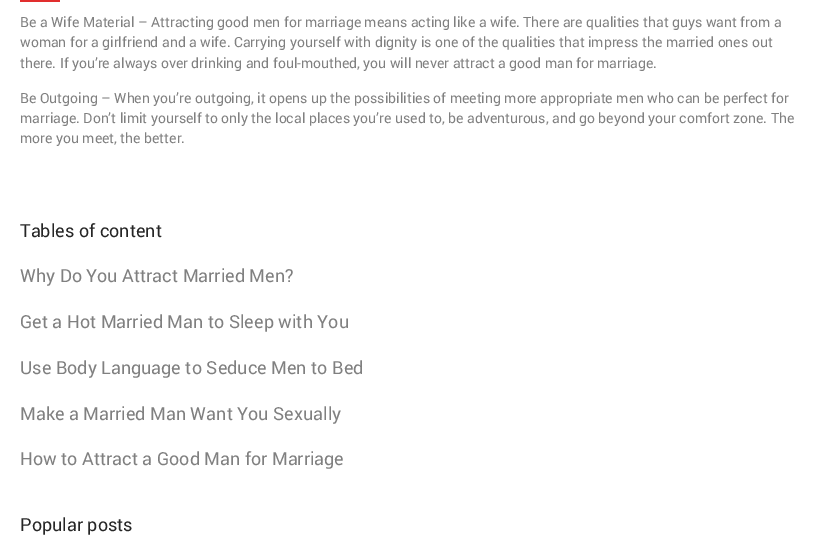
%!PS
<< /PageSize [816 556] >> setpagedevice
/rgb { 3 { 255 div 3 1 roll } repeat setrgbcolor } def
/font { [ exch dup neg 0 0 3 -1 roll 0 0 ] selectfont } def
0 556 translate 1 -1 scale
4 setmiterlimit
255 255 255 rgb
0 0 816 556 rectfill
225 46 46 rgb
20 0 40 2 rectfill
/Roboto-Regular 14 font
128 128 128 rgb
[
  [(Be a Wife Material – Attracting good men for marriage means acting like a wife. There are qualities that guys want from a) 20 27]
  [(woman for a girlfriend and a wife. Carrying yourself with dignity is one of the qualities that impress the married ones out) 20 47]
  [(there. If you’re always over drinking and foul-mouthed, you will never attract a good man for marriage.) 20 68]
  [(Be Outgoing – When you’re outgoing, it opens up the possibilities of meeting more appropriate men who can be perfect for) 20 103]
  [(marriage. Don’t limit yourself to only the local places you’re used to, be adventurous, and go beyond your comfort zone. The) 20 123]
  [(more you meet, the better.) 20 143]
] { aload pop moveto show } forall
/Roboto-Regular 18 font
38 38 38 rgb
20 237 moveto (Tables of content) show
128 128 128 rgb
[
  [(Why Do You Attract Married Men?) 20 282]
  [(Get a Hot Married Man to Sleep with You) 20 328]
  [(Use Body Language to Seduce Men to Bed) 20 374]
  [(Make a Married Man Want You Sexually) 20 420]
  [(How to Attract a Good Man for Marriage) 20 465]
] { aload pop moveto show } forall
38 38 38 rgb
20 531 moveto (Popular posts) show
showpage
